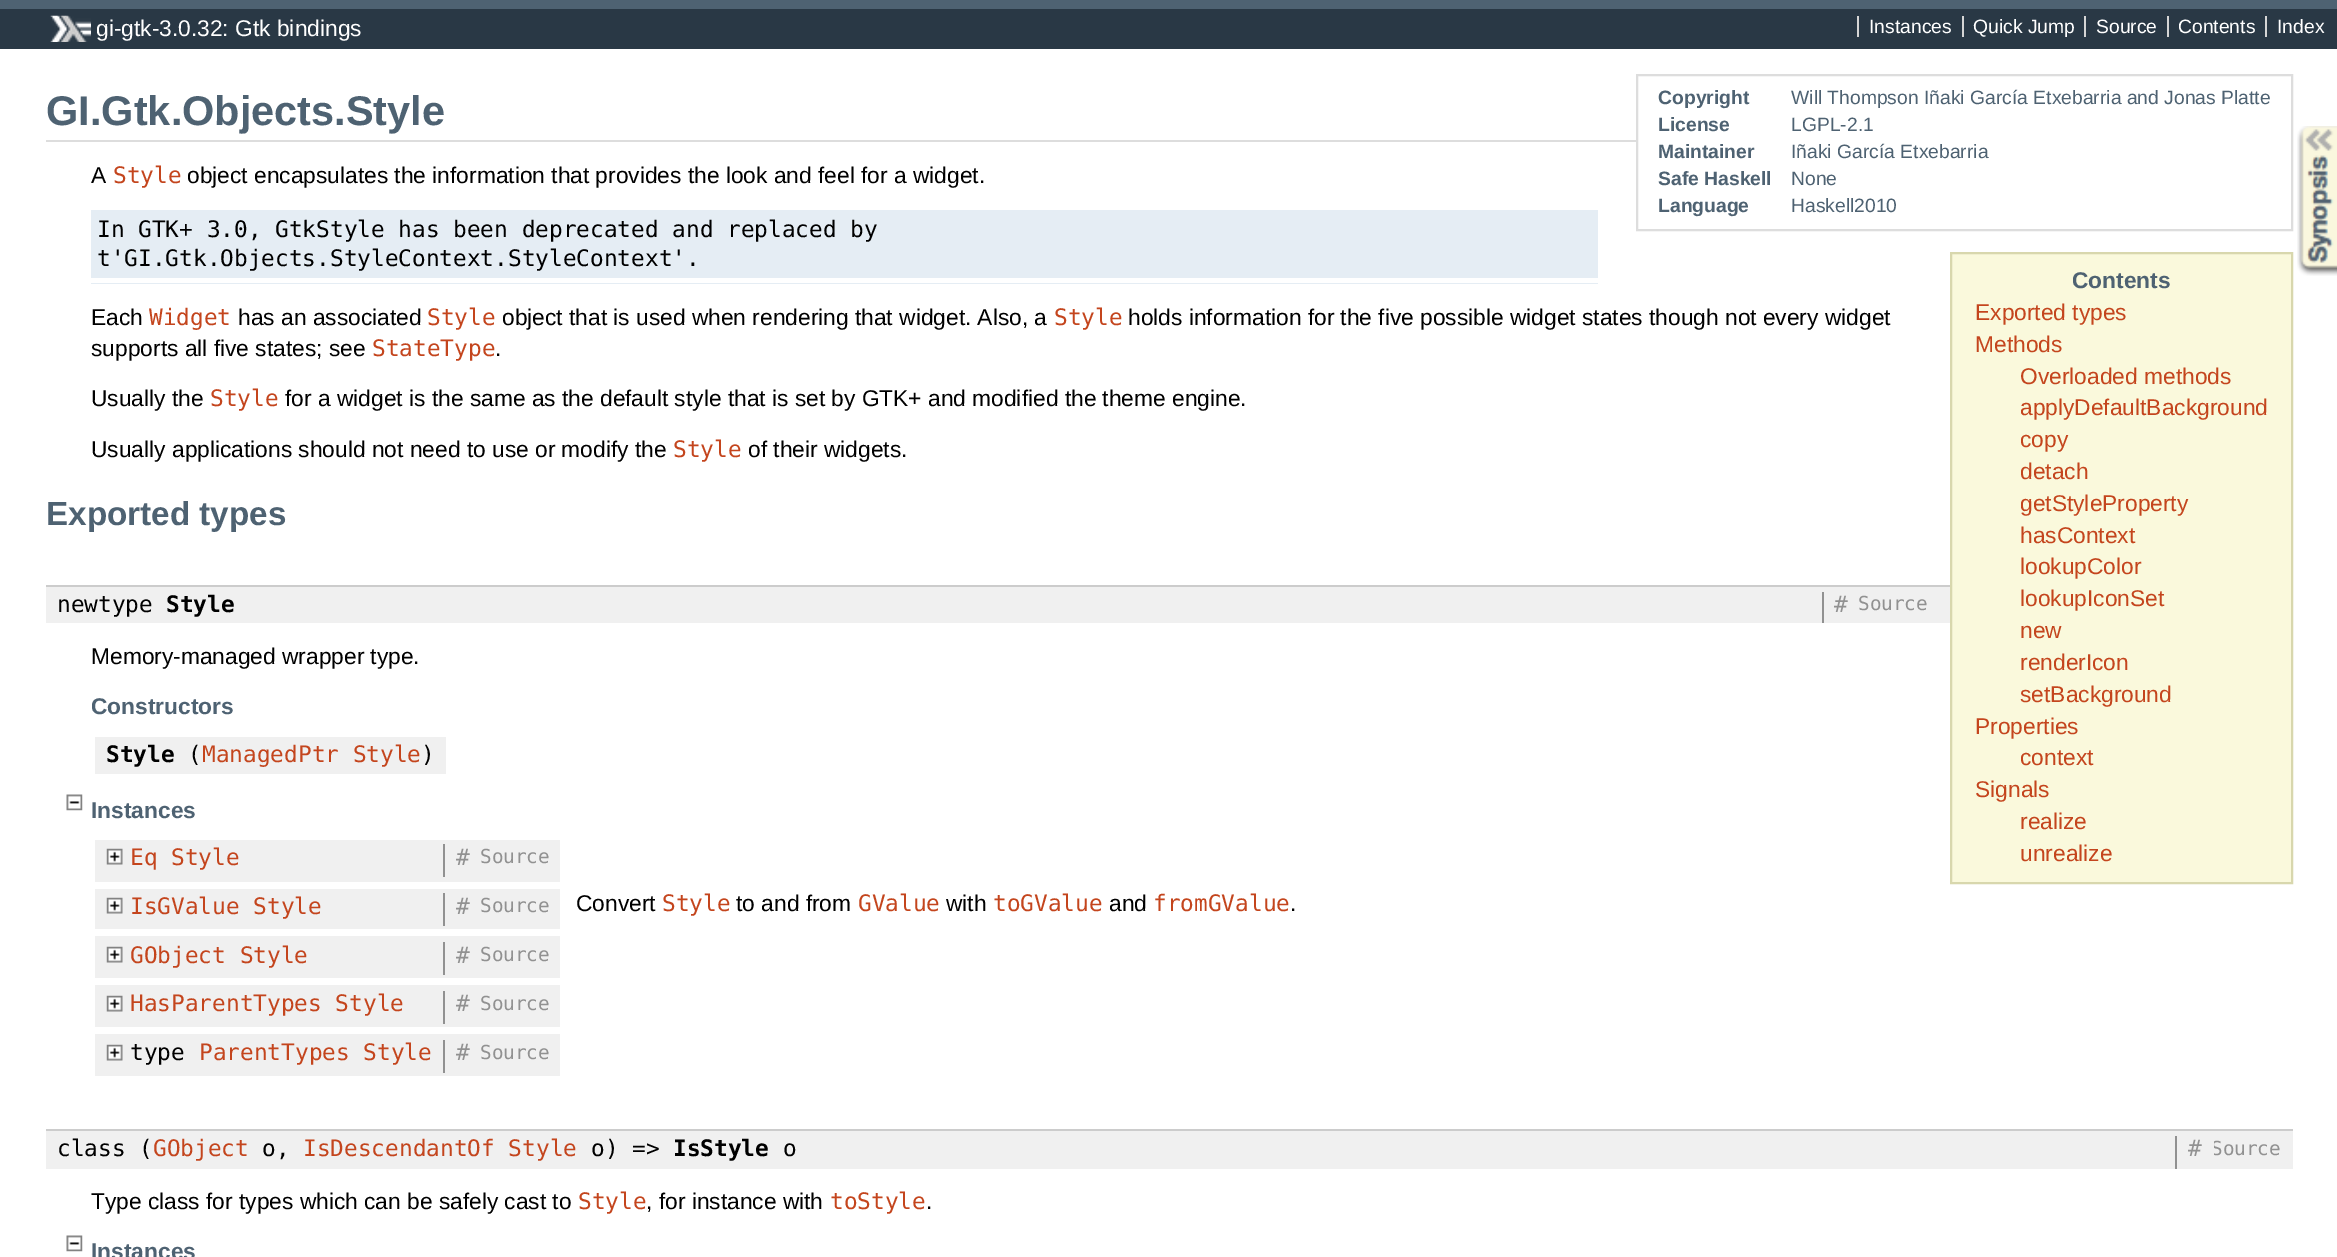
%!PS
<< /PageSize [2337 1257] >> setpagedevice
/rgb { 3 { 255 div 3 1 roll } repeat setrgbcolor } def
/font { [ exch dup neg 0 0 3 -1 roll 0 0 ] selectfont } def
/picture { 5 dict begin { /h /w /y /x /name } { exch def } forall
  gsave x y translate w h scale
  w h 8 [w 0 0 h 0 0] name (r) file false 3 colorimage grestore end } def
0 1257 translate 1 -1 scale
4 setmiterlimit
255 255 255 rgb
0 0 2337 1257 rectfill
41 56 69 rgb
0 9 2337 40 rectfill
78 98 114 rgb
0 0 2337 9 rectfill
(img/1.rgb) 50 15 41 27 picture
[
  [1857 16 2 21 213 213 213]
  [1962 16 2 21 213 213 213]
  [2084 16 2 21 213 213 213]
  [2167 16 2 21 213 213 213]
  [2265 16 2 21 213 213 213]
  [46 140 1590 2 221 221 221]
] { aload pop rgb rectfill } forall
2 setlinewidth
1637 75 655 155 rectstroke
(img/2.rgb) 2297 126 40 150 picture
229 237 244 rgb
91 210 1507 74 rectfill
255 255 255 rgb
91 278 1507 5 rectfill
250 249 220 rgb
1951 253 moveto 2292 253 lineto 2292 883 lineto 1951 883 lineto closepath gsave fill grestore
216 215 173 rgb
stroke
[
  [46 587 1904 36 240 240 240]
  [46 585 1904 2 204 204 204]
  [1822 592 2 31 145 145 145]
  [95 737 351 37 240 240 240]
] { aload pop rgb rectfill } forall
(img/3.rgb) 66 794 17 17 picture
95 840 465 42 rectfill
(img/4.rgb) 106 848 17 17 picture
145 145 145 rgb
443 844 2 33 rectfill
240 240 240 rgb
95 889 465 40 rectfill
(img/4.rgb) 106 897 17 17 picture
145 145 145 rgb
443 893 2 33 rectfill
240 240 240 rgb
95 936 465 42 rectfill
(img/4.rgb) 106 946 17 17 picture
145 145 145 rgb
443 942 2 33 rectfill
240 240 240 rgb
95 985 465 42 rectfill
(img/4.rgb) 106 995 17 17 picture
145 145 145 rgb
443 991 2 33 rectfill
240 240 240 rgb
95 1034 465 42 rectfill
(img/4.rgb) 106 1044 17 17 picture
[
  [443 1040 2 33 145 145 145]
  [46 1131 2247 38 240 240 240]
  [46 1129 2247 2 204 204 204]
  [2175 1136 2 33 145 145 145]
] { aload pop rgb rectfill } forall
(img/3.rgb) 66 1235 17 17 picture
/LiberationSans-Regular 22.75 font
255 255 255 rgb
96 36 moveto (gi-gtk-3.0.32: Gtk bindings) show
/LiberationSans-Regular 19.3 font
[
  [(Instances) 1869 33]
  [(Quick Jump) 1973 33]
  [(Source) 2096 33]
  [(Contents) 2178 33]
  [(Index) 2277 33]
] { aload pop moveto show } forall
/LiberationSans-Bold 41.5 font
78 98 114 rgb
46 125 moveto (GI.Gtk.Objects.Style) show
/LiberationSans-Bold 19.3 font
1658 104 moveto (Copyright) show
/LiberationSans-Regular 19.3 font
1791 104 moveto (Will Thompson Iñaki García Etxebarria and Jonas Platte) show
/LiberationSans-Bold 19.3 font
1658 131 moveto (License) show
/LiberationSans-Regular 19.3 font
1791 131 moveto (LGPL-2.1) show
/LiberationSans-Bold 19.3 font
1658 158 moveto (Maintainer) show
/LiberationSans-Regular 19.3 font
1791 158 moveto (Iñaki García Etxebarria) show
/LiberationSans-Bold 19.3 font
1658 185 moveto (Safe Haskell) show
/LiberationSans-Regular 19.3 font
1791 185 moveto (None) show
/LiberationSans-Bold 19.3 font
1658 212 moveto (Language) show
/LiberationSans-Regular 19.3 font
1791 212 moveto (Haskell2010) show
/LiberationSans-Regular 22.75 font
0 0 0 rgb
91 183 moveto (A) show
/DejaVuSansMono-Regular 22.75 font
196 69 29 rgb
113 183 moveto (Style) show
/LiberationSans-Regular 22.75 font
0 0 0 rgb
187 183 moveto (object encapsulates the information that provides the look and feel for a widget.) show
/DejaVuSansMono-Regular 22.75 font
97 237 moveto (In GTK+ 3.0, GtkStyle has been deprecated and replaced by) show
97 266 moveto (t'GI.Gtk.Objects.StyleContext.StyleContext'.) show
/LiberationSans-Regular 22.75 font
91 325 moveto (Each) show
/DejaVuSansMono-Regular 22.75 font
196 69 29 rgb
149 325 moveto (Widget) show
/LiberationSans-Regular 22.75 font
0 0 0 rgb
238 325 moveto (has an associated) show
/DejaVuSansMono-Regular 22.75 font
196 69 29 rgb
427 325 moveto (Style) show
/LiberationSans-Regular 22.75 font
0 0 0 rgb
502 325 moveto (object that is used when rendering that widget. Also, a) show
/DejaVuSansMono-Regular 22.75 font
196 69 29 rgb
1054 325 moveto (Style) show
/LiberationSans-Regular 22.75 font
0 0 0 rgb
1128 325 moveto (holds information for the five possible widget states though not every widget) show
91 356 moveto (supports all five states; see) show
/DejaVuSansMono-Regular 22.75 font
196 69 29 rgb
372 356 moveto (StateType) show
/LiberationSans-Regular 22.75 font
0 0 0 rgb
495 356 moveto (.) show
91 406 moveto (Usually the) show
/DejaVuSansMono-Regular 22.75 font
196 69 29 rgb
210 406 moveto (Style) show
/LiberationSans-Regular 22.75 font
0 0 0 rgb
285 406 moveto (for a widget is the same as the default style that is set by GTK+ and modified the theme engine.) show
91 457 moveto (Usually applications should not need to use or modify the) show
/DejaVuSansMono-Regular 22.75 font
196 69 29 rgb
673 457 moveto (Style) show
/LiberationSans-Regular 22.75 font
0 0 0 rgb
748 457 moveto (of their widgets.) show
/LiberationSans-Bold 22.75 font
78 98 114 rgb
2072 288 moveto (Contents) show
/LiberationSans-Regular 22.75 font
196 69 29 rgb
[
  [(Exported types) 1975 320]
  [(Methods) 1975 352]
  [(Overloaded methods) 2020 384]
  [(applyDefaultBackground) 2020 415]
  [(copy) 2020 447]
  [(detach) 2020 479]
  [(getStyleProperty) 2020 511]
  [(hasContext) 2020 543]
  [(lookupColor) 2020 574]
  [(lookupIconSet) 2020 606]
  [(new) 2020 638]
  [(renderIcon) 2020 670]
  [(setBackground) 2020 702]
  [(Properties) 1975 734]
  [(context) 2020 765]
  [(Signals) 1975 797]
  [(realize) 2020 829]
  [(unrealize) 2020 861]
] { aload pop moveto show } forall
/LiberationSans-Bold 33.25 font
78 98 114 rgb
46 525 moveto (Exported types) show
/DejaVuSansMono-Regular 22.75 font
0 0 0 rgb
57 612 moveto (newtype) show
/DejaVuSansMono-Bold 22.75 font
166 612 moveto (Style) show
/DejaVuSansMono-Regular 22.75 font
145 145 145 rgb
1834 612 moveto (#) show
/DejaVuSansMono-Regular 19.3 font
1858 610 moveto (Source) show
240 240 240 rgb
1858 599 1 2 rectfill
/LiberationSans-Regular 22.75 font
0 0 0 rgb
91 664 moveto (Memory-managed wrapper type.) show
/LiberationSans-Bold 22.75 font
78 98 114 rgb
91 714 moveto (Constructors) show
/DejaVuSansMono-Bold 22.75 font
0 0 0 rgb
106 762 moveto (Style) show
/DejaVuSansMono-Regular 22.75 font
188 762 moveto (\() show
196 69 29 rgb
202 762 moveto (ManagedPtr Style) show
0 0 0 rgb
421 762 moveto (\)) show
/LiberationSans-Bold 22.75 font
78 98 114 rgb
91 818 moveto (Instances) show
/DejaVuSansMono-Regular 22.75 font
196 69 29 rgb
130 865 moveto (Eq Style) show
145 145 145 rgb
456 865 moveto (#) show
/DejaVuSansMono-Regular 19.3 font
480 863 moveto (Source) show
240 240 240 rgb
480 852 1 1 rectfill
/DejaVuSansMono-Regular 22.75 font
196 69 29 rgb
130 914 moveto (IsGValue Style) show
145 145 145 rgb
456 914 moveto (#) show
/DejaVuSansMono-Regular 19.3 font
480 912 moveto (Source) show
240 240 240 rgb
480 901 1 1 rectfill
/LiberationSans-Regular 22.75 font
0 0 0 rgb
576 911 moveto (Convert) show
/DejaVuSansMono-Regular 22.75 font
196 69 29 rgb
662 911 moveto (Style) show
/LiberationSans-Regular 22.75 font
0 0 0 rgb
736 911 moveto (to and from) show
/DejaVuSansMono-Regular 22.75 font
196 69 29 rgb
858 911 moveto (GValue) show
/LiberationSans-Regular 22.75 font
0 0 0 rgb
946 911 moveto (with) show
/DejaVuSansMono-Regular 22.75 font
196 69 29 rgb
993 911 moveto (toGValue) show
/LiberationSans-Regular 22.75 font
0 0 0 rgb
1109 911 moveto (and) show
/DejaVuSansMono-Regular 22.75 font
196 69 29 rgb
1153 911 moveto (fromGValue) show
/LiberationSans-Regular 22.75 font
0 0 0 rgb
1290 911 moveto (.) show
/DejaVuSansMono-Regular 22.75 font
196 69 29 rgb
130 963 moveto (GObject Style) show
145 145 145 rgb
456 963 moveto (#) show
/DejaVuSansMono-Regular 19.3 font
480 961 moveto (Source) show
240 240 240 rgb
480 950 1 1 rectfill
/DejaVuSansMono-Regular 22.75 font
196 69 29 rgb
130 1011 moveto (HasParentTypes Style) show
145 145 145 rgb
456 1011 moveto (#) show
/DejaVuSansMono-Regular 19.3 font
480 1010 moveto (Source) show
240 240 240 rgb
480 999 1 1 rectfill
/DejaVuSansMono-Regular 22.75 font
0 0 0 rgb
130 1060 moveto (type) show
196 69 29 rgb
199 1060 moveto (ParentTypes Style) show
145 145 145 rgb
456 1060 moveto (#) show
/DejaVuSansMono-Regular 19.3 font
480 1059 moveto (Source) show
240 240 240 rgb
480 1048 1 1 rectfill
/DejaVuSansMono-Regular 22.75 font
0 0 0 rgb
57 1156 moveto (class \() show
196 69 29 rgb
153 1156 moveto (GObject) show
0 0 0 rgb
262 1156 moveto (o,) show
196 69 29 rgb
303 1156 moveto (IsDescendantOf Style) show
0 0 0 rgb
591 1156 moveto (o\) =>) show
/DejaVuSansMono-Bold 22.75 font
673 1156 moveto (IsStyle) show
/DejaVuSansMono-Regular 22.75 font
783 1156 moveto (o) show
145 145 145 rgb
2188 1156 moveto (#) show
/DejaVuSansMono-Regular 19.3 font
2211 1155 moveto (Source) show
240 240 240 rgb
2212 1141 2 14 rectfill
/LiberationSans-Regular 22.75 font
0 0 0 rgb
91 1209 moveto (Type class for types which can be safely cast to) show
/DejaVuSansMono-Regular 22.75 font
196 69 29 rgb
578 1209 moveto (Style) show
/LiberationSans-Regular 22.75 font
0 0 0 rgb
646 1209 moveto (, for instance with) show
/DejaVuSansMono-Regular 22.75 font
196 69 29 rgb
830 1209 moveto (toStyle) show
/LiberationSans-Regular 22.75 font
0 0 0 rgb
926 1209 moveto (.) show
/LiberationSans-Bold 22.75 font
78 98 114 rgb
91 1259 moveto (Instances) show
showpage
